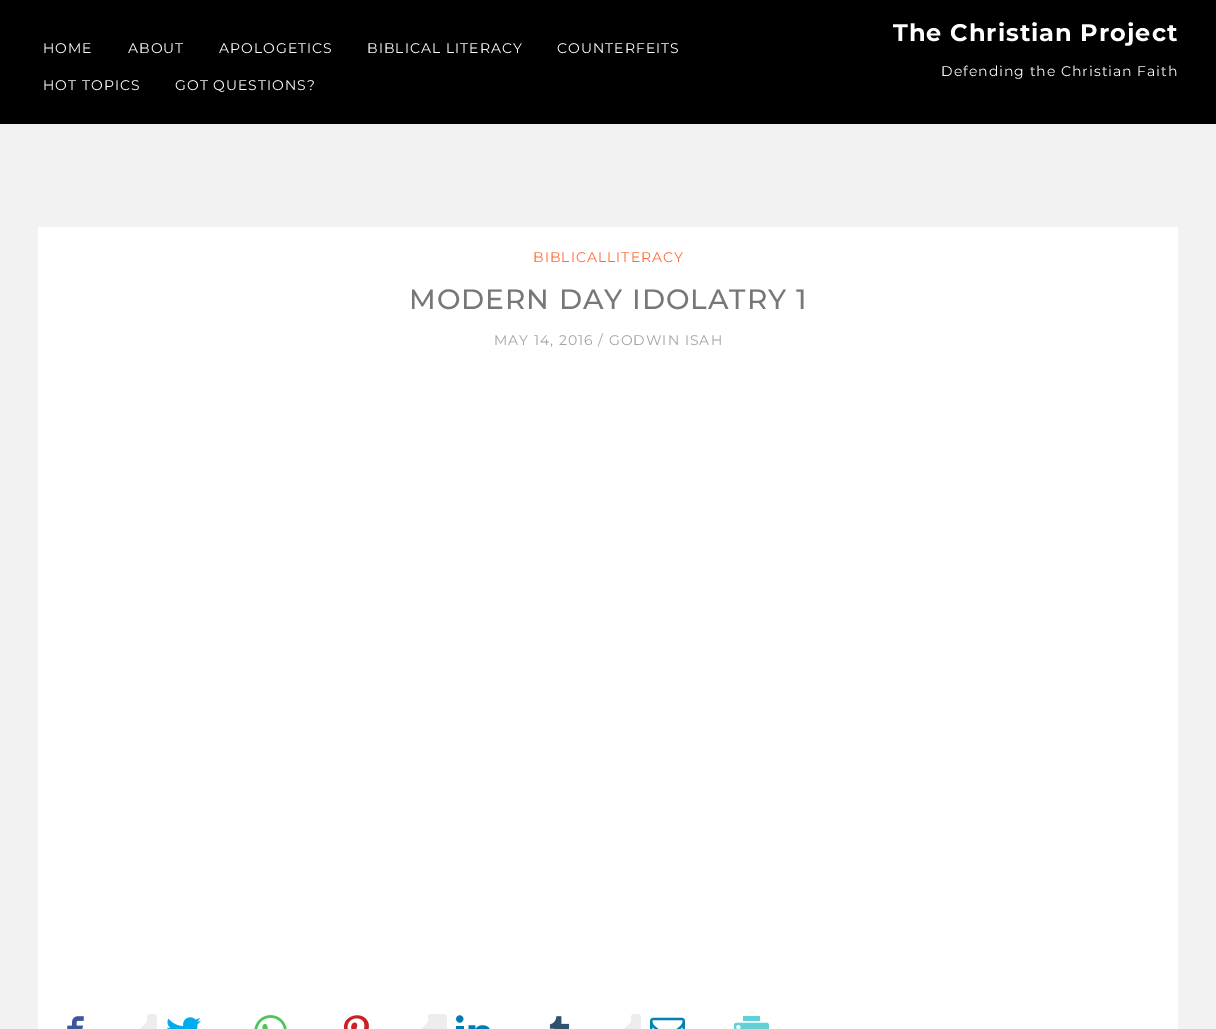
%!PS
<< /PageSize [1216 1029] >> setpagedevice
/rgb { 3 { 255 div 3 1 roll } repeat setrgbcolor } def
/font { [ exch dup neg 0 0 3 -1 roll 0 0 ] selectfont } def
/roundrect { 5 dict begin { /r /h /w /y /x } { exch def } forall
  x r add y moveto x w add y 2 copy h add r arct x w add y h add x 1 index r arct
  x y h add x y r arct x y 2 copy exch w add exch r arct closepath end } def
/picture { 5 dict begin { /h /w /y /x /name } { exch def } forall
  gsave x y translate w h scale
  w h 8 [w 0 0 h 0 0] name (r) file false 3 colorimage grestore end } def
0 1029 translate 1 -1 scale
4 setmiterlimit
242 242 242 rgb
0 0 1216 1029 rectfill
0 0 0 rgb
0 0 1216 124 rectfill
255 255 255 rgb
38 227 1140 802 rectfill
(img/1.rgb) 67 1016 17 13 picture
237 237 237 rgb
147 1014 10 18 3 roundrect fill
147 1022 moveto 147 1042 lineto 137 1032 lineto closepath fill
(img/2.rgb) 167 1017 34 12 picture
(img/3.rgb) 254 1015 33 14 picture
(img/4.rgb) 343 1015 26 14 picture
428 1014 19 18 3 roundrect fill
428 1022 moveto 428 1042 lineto 418 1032 lineto closepath fill
(img/5.rgb) 456 1015 34 14 picture
(img/6.rgb) 549 1016 21 13 picture
631 1014 10 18 3 roundrect fill
631 1022 moveto 631 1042 lineto 621 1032 lineto closepath fill
(img/7.rgb) 650 1017 35 12 picture
(img/8.rgb) 734 1016 35 13 picture
/Montserrat-Regular 14 font
255 255 255 rgb
43 53 moveto 1 0 (HOME) ashow
128 53 moveto 1 0 (ABOUT) ashow
219 53 moveto 1 0 (APOLOGETICS) ashow
367 53 moveto 1 0 (BIBLICAL LITERACY) ashow
557 53 moveto 1 0 (COUNTERFEITS) ashow
43 90 moveto 1 0 (HOT TOPICS) ashow
175 90 moveto 1 0 (GOT QUESTIONS?) ashow
/Montserrat-Bold 24 font
893 41 moveto 1 0 (The Christian Project) ashow
/Montserrat-Regular 14 font
941 76 moveto 1 0 (Defending the Christian Faith) ashow
255 108 58 rgb
533 262 moveto 1 0 (BIBLICALLITERACY) ashow
/Montserrat-Medium 28 font
119 119 119 rgb
409 309 moveto 1 0 (MODERN DAY IDOLATRY 1) ashow
/Montserrat-Regular 14 font
163 163 163 rgb
494 345 moveto 1 0 (MAY 14, 2016 / GODWIN ISAH) ashow
showpage
